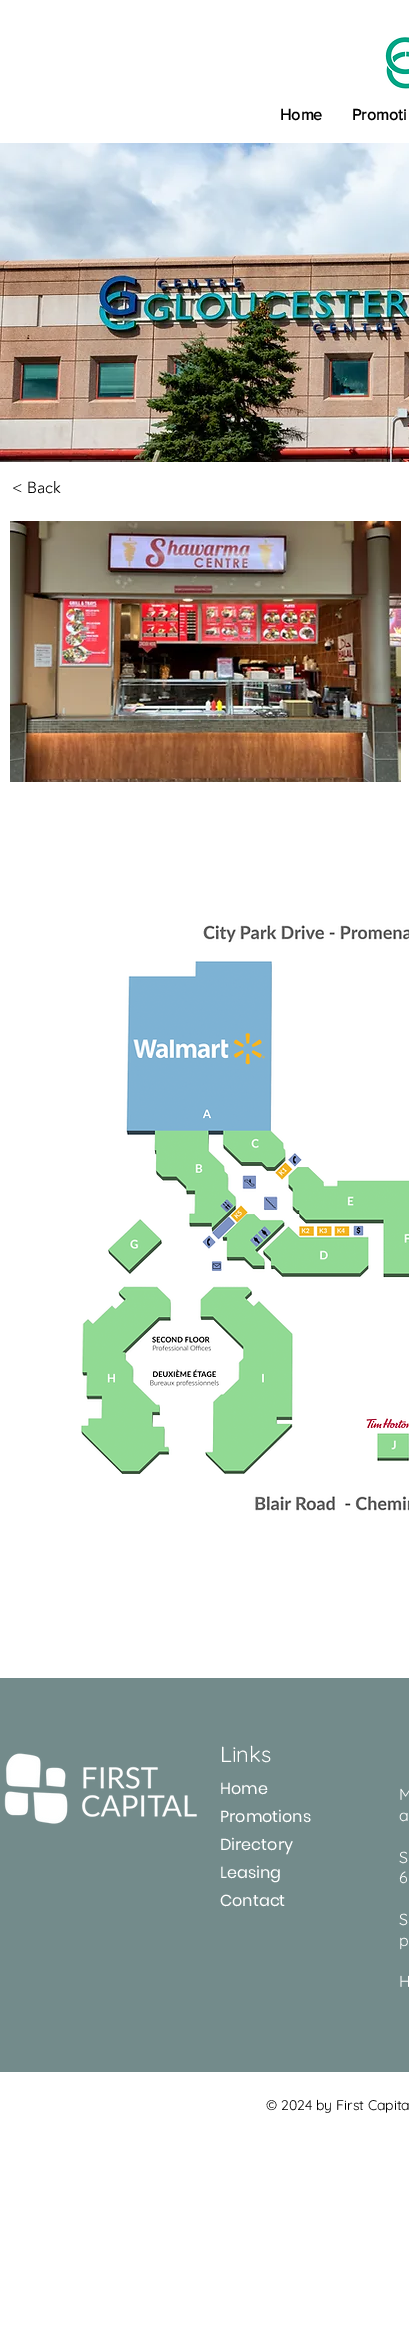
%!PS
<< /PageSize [409 2329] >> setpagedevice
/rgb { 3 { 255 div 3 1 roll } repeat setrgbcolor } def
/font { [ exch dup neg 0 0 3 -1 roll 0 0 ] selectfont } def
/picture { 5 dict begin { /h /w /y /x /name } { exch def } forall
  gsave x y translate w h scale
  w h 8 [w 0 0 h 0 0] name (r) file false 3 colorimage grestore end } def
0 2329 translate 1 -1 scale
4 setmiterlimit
255 255 255 rgb
0 0 409 2329 rectfill
(img/1.rgb) 385 37 24 53 picture
(img/2.rgb) 0 143 409 319 picture
(img/3.rgb) 10 521 391 261 picture
(img/4.rgb) 81 925 328 586 picture
115 139 139 rgb
0 1678 409 394 rectfill
(img/5.rgb) 4 1753 193 71 picture
/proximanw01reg-Bold 16 font
0 0 0 rgb
280 120 moveto (Home) show
352 120 moveto (Promoti) show
/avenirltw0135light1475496-Light 16 font
12 493 moveto (< Back) show
/Quicksand-Regular 22 font
255 255 255 rgb
220 1762 moveto (Links) show
/Poppins-Regular 16 font
[
  [(Home) 220 1794]
  [(Promotions) 220 1822]
  [(Directory) 220 1850]
  [(Leasing) 220 1878]
  [(Contact) 220 1906]
] { aload pop moveto show } forall
/Quicksand-Regular 16 font
[
  [(M) 399 1800]
  [(a) 399 1821]
  [(S) 399 1863]
  [(6) 399 1883]
  [(S) 399 1925]
  [(p) 399 1946]
  [(H) 399 1987]
] { aload pop moveto show } forall
/Quicksand-Regular 14 font
0 0 0 rgb
266 2110 moveto (© 2024 by First Capita) show
showpage
